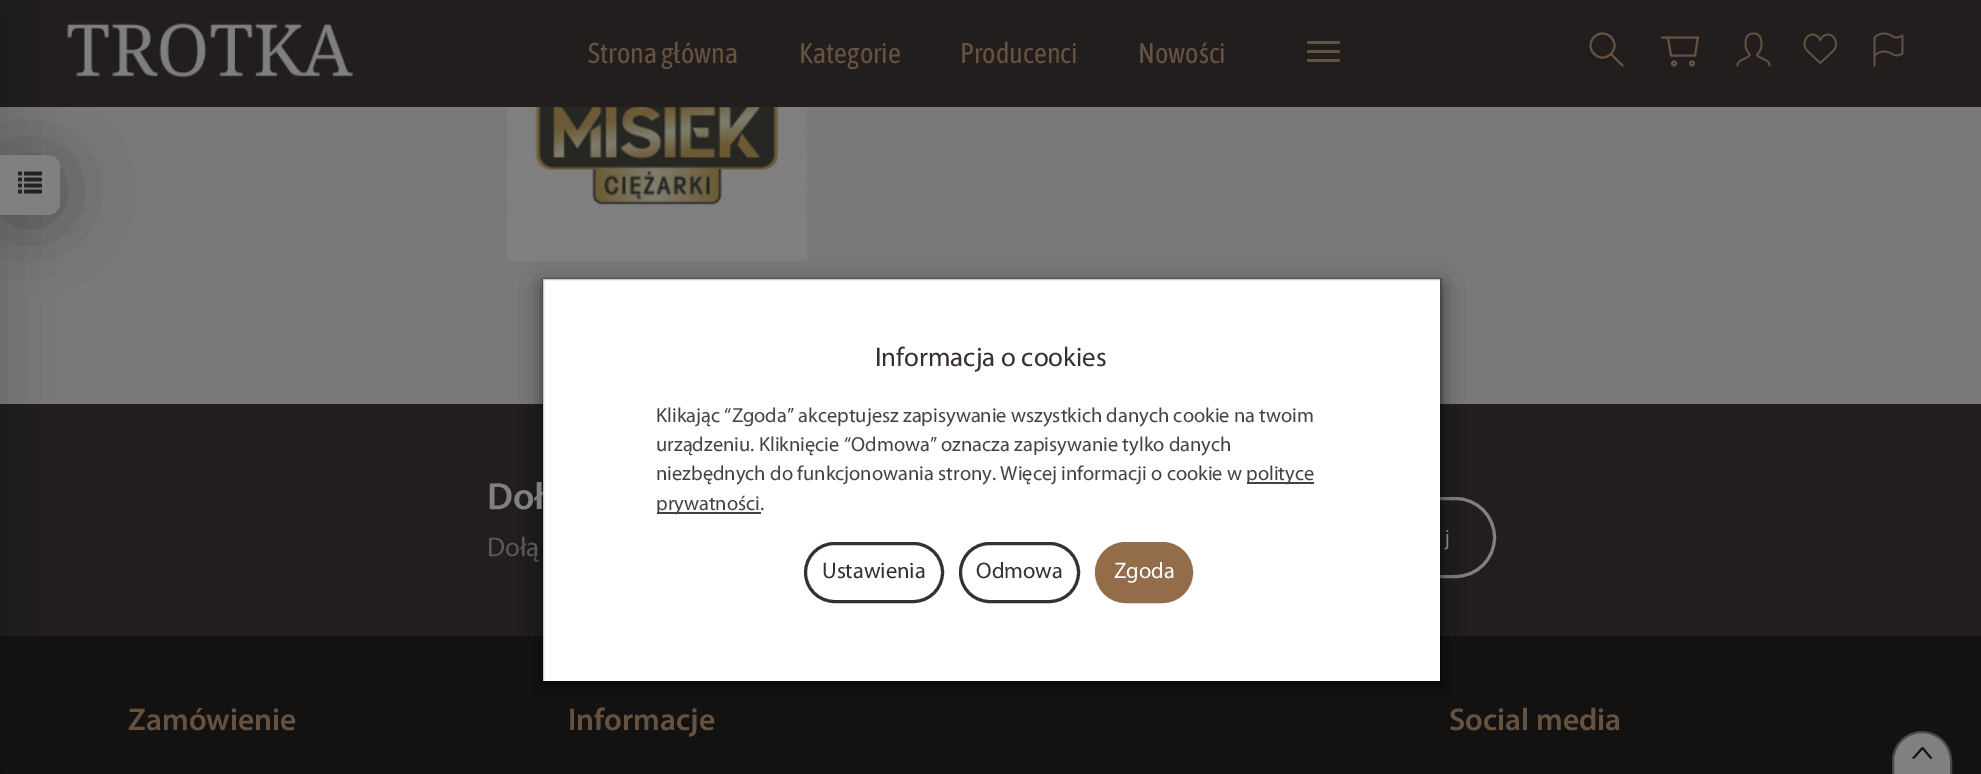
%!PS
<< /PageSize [1981 774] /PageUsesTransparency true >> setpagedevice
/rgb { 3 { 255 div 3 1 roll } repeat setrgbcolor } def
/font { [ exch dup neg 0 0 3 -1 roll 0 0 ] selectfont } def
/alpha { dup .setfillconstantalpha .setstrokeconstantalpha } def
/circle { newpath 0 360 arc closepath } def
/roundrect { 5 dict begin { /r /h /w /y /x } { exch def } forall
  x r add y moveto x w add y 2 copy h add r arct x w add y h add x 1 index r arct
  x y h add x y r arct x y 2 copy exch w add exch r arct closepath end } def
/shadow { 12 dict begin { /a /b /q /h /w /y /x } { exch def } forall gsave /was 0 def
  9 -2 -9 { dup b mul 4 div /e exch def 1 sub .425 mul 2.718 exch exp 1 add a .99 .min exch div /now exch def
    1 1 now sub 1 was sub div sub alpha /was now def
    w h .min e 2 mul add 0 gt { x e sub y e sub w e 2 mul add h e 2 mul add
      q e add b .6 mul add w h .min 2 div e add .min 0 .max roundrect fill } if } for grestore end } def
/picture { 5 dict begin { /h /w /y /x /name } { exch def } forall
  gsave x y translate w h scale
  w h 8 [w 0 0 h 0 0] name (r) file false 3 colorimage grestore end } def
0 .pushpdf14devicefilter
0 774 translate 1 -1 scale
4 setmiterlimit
123 121 119 rgb
0 0 1981 774 rectfill
33 30 29 rgb
0 0 1981 107 rectfill
(img/2.rgb) 67 23 287 55 picture
0 404 1981 232 rectfill
19 18 17 rgb
0 636 1981 138 rectfill
0 0 0 rgb
-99 6 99 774 0 33 0.17 shadow
0 161 60 60 12 34 0.35 shadow
128 128 128 rgb
0 155 moveto 48 155 lineto 54.5 155 60 160.5 60 167 curveto 60 203 lineto 60 209.5 54.5 215 48 215 curveto 0 215 lineto closepath fill
(img/1.rgb) 18 171 24 23 picture
102 82 65 rgb
1307 41 33 3 1.5 roundrect fill
1307 50 33 3 1.5 roundrect fill
1307 59 33 3 1.5 roundrect fill
2 setlinewidth
1 setlinecap
1 setlinejoin
1611.5 54.5 moveto 1622.5 65.5 lineto stroke
0 setlinecap
0 setlinejoin
1602.5 45.5 12 circle stroke
1 setlinecap
1 setlinejoin
1668 37.5 moveto 1698 37.5 lineto 1695 55.5 lineto 1671 55.5 lineto closepath stroke
1668 37.5 moveto 1662 37.5 lineto stroke
0 setlinecap
0 setlinejoin
1674 63.5 2 circle stroke
1692 63.5 2 circle stroke
(img/3.rgb) 1736 32 35 35 picture
(img/4.rgb) 1803 33 34 31 picture
(img/5.rgb) 1873 32 31 35 picture
(img/6.rgb) 507 107 300 154 picture
128 128 128 rgb
3 setlinewidth
1348.5 498.5 146 78 39 roundrect stroke
0 0 0 rgb
542 285 900 405 0 11 0.5 shadow
128 128 128 rgb
1922 732 moveto 1938 732 1951 745 1951 761 curveto 1951 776 lineto 1893 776 lineto 1893 761 lineto 1893 745 1906 732 1922 732 curveto closepath gsave fill grestore
72 72 72 rgb
2 setlinewidth
stroke
21 21 21 rgb
1.9 setlinewidth
1 setlinecap
1 setlinejoin
1913.5 758 moveto 1922.5 748 lineto 1931 758 lineto stroke
/AsapCondensed-Regular 28.5 font
102 82 65 rgb
[
  [(Strona główna) 588 63]
  [(Kategorie) 799 63]
  [(Producenci) 960 63]
  [(Nowości) 1138 63]
] { aload pop moveto show } forall
/Myriad-SemiBold 38 font
128 128 128 rgb
487 509 moveto (Doł) show
255 255 255 rgb
543 279 897 402 rectfill
0.2 alpha
0 0 0 rgb
2 setlinewidth
0 setlinecap
0 setlinejoin
543 279 898 403 rectstroke
1 alpha
147 108 74 rgb
1096.5 543.5 95 58 29 roundrect gsave fill grestore
3 setlinewidth
stroke
/Myriad-Regular 22.5 font
255 255 255 rgb
1114 578 moveto (Zgoda) show
54 48 46 rgb
960.5 543.5 118 58 29 roundrect stroke
976 578 moveto (Odmowa) show
805.5 543.5 137 58 29 roundrect stroke
822 578 moveto (Ustawienia) show
67 67 67 rgb
657 512 104 2 rectfill
/Myriad-Regular 20.4 font
656 510 moveto (prywatności.) show
1247 482 67 2 rectfill
[
  [(polityce) 1246 480]
  [(niezbędnych do funkcjonowania strony. Więcej informacji o cookie w) 656 480]
  [(urządzeniu. Kliknięcie “Odmowa” oznacza zapisywanie tylko danych) 656 451]
  [(Klikając “Zgoda” akceptujesz zapisywanie wszystkich danych cookie na twoim) 656 422]
] { aload pop moveto show } forall
/Myriad-Regular 27 font
54 48 46 rgb
875 366 moveto (Informacja o cookies) show
90 88 86 rgb
487 556 moveto (Dołą) show
/RobotoCondensed-Regular 21 font
128 128 128 rgb
1445 545 moveto 3 0 (j) ashow
/Myriad-SemiBold 31.5 font
102 82 65 rgb
[
  [(Zamówienie) 128 730]
  [(Informacje) 568 730]
  [(Social media) 1449 730]
] { aload pop moveto show } forall
.poppdf14devicefilter showpage
